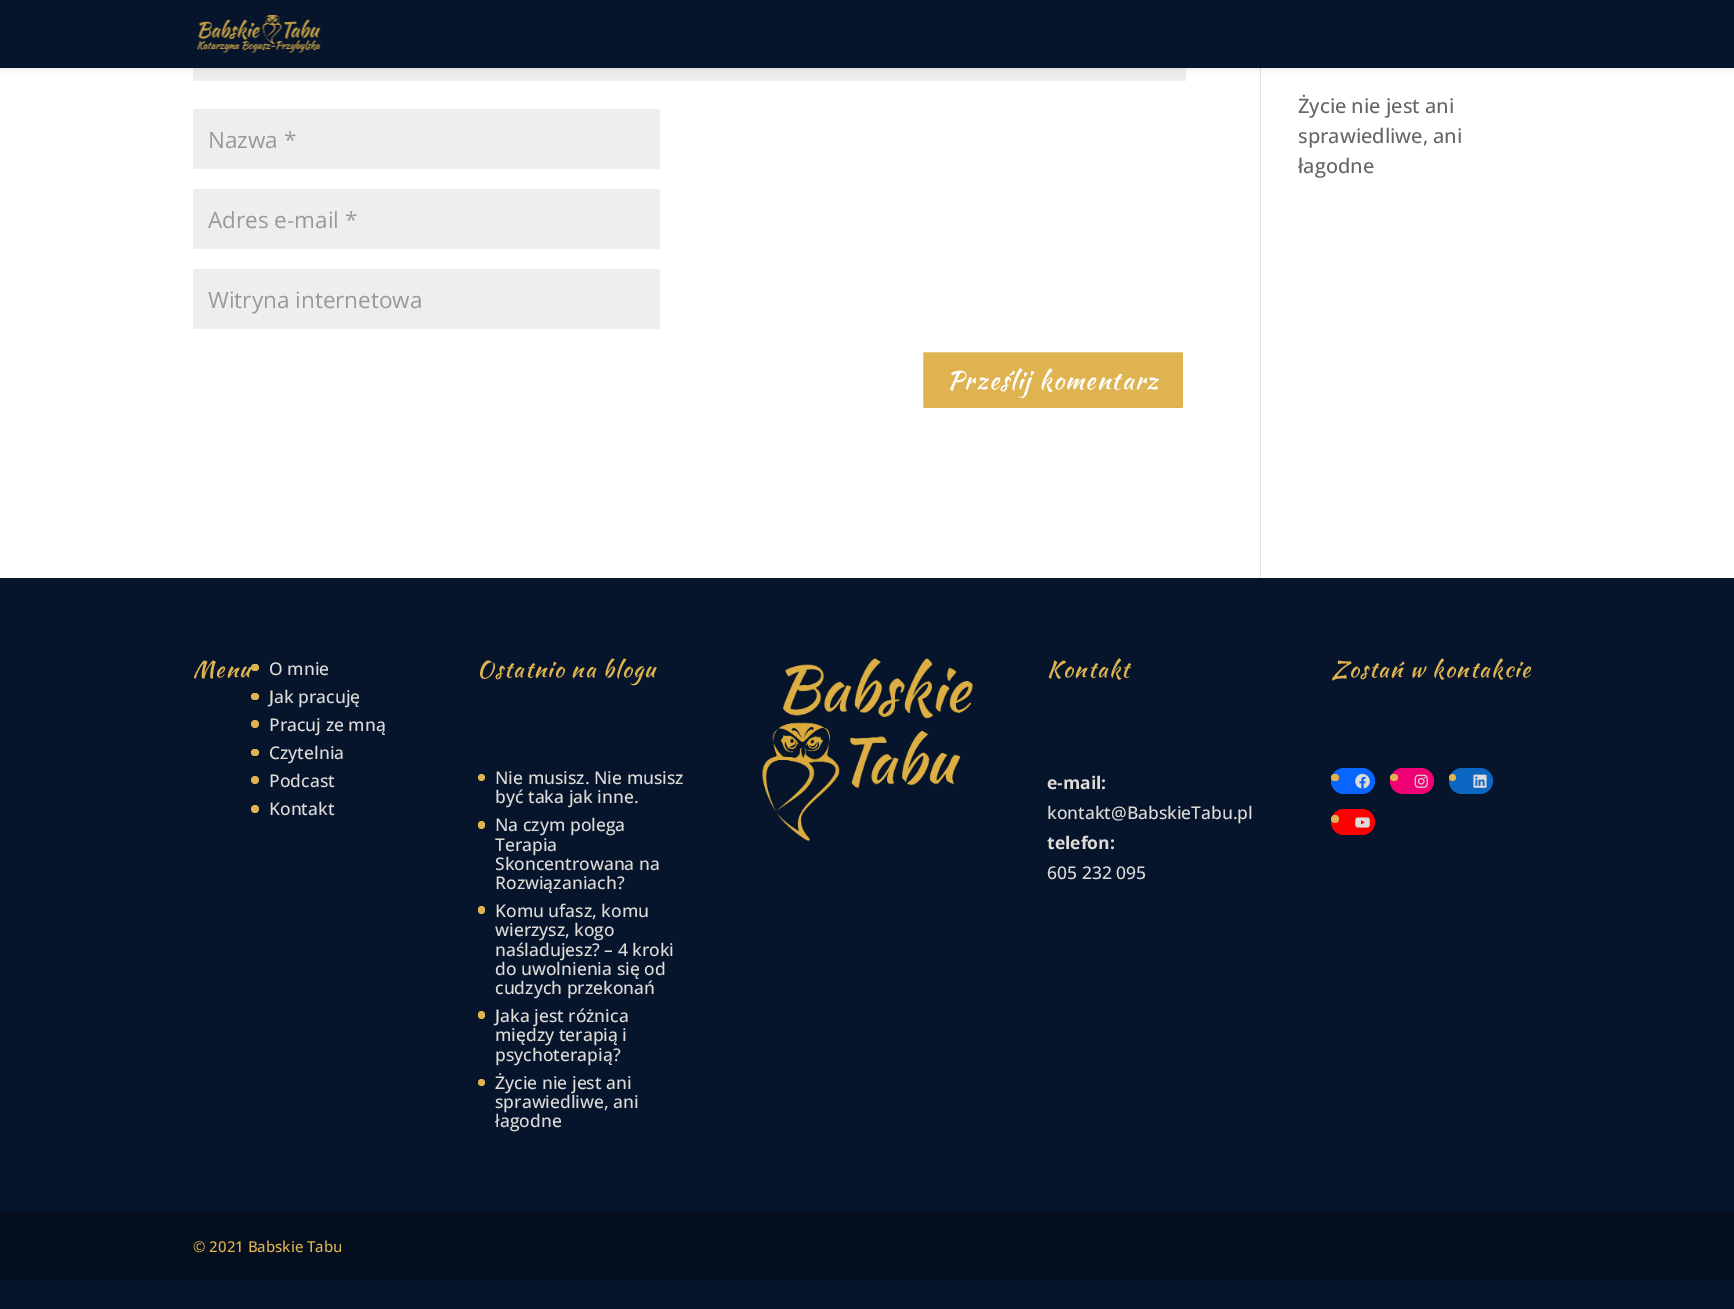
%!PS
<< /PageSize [1734 1309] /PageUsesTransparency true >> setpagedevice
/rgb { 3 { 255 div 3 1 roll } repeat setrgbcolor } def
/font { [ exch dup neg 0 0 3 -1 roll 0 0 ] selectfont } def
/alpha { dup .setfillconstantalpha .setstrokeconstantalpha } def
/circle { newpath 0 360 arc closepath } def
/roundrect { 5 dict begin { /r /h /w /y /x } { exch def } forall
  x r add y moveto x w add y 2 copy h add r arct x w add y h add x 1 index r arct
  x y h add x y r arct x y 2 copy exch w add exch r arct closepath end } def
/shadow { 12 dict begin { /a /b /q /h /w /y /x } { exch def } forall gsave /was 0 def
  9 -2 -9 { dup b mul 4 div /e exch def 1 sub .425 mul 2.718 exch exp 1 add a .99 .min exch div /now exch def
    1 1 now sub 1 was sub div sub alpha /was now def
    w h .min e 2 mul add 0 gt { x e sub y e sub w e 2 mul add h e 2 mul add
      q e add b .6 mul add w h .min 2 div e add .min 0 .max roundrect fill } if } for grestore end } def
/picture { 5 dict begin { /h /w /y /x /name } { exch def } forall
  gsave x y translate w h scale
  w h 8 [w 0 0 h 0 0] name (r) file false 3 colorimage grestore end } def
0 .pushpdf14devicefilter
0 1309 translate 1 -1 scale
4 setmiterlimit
6 21 43 rgb
0 0 1734 1309 rectfill
[
  [0 68 1734 510 255 255 255]
  [1260 68 1 510 226 226 226]
  [193 68 993 13 238 238 238]
] { aload pop rgb rectfill } forall
0 0 0 rgb
0 0 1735 68 0 4.5 0.1 shadow
6 21 43 rgb
1 1 1733 66 rectfill
(img/1.rgb) 197 15 124 38 picture
[
  [193 109 467 60 238 238 238]
  [193 189 467 60 238 238 238]
  [193 269 467 60 238 238 238]
] { aload pop rgb rectfill } forall
222 179 80 rgb
921.5 350.5 263 59 2.5 roundrect gsave fill grestore
255 255 255 rgb
3 setlinewidth
stroke
222 179 80 rgb
251 664 8 7 3.5 roundrect fill
251 693 8 7 3.5 roundrect fill
255 724 4 circle fill
251 749 8 7 3.5 roundrect fill
255 780 4 circle fill
255 809 4 circle fill
481.5 777.5 3.5 circle fill
478 821 7 8 3.5 roundrect fill
478 906 7 8 3.5 roundrect fill
478 1011 7 8 3.5 roundrect fill
481.5 1082.5 3.5 circle fill
(img/2.rgb) 762 658 211 183 picture
8 102 255 rgb
1331 768 44 26 13 roundrect fill
222 179 80 rgb
1331 774 8 7 3.5 roundrect fill
(img/3.rgb) 1355 774 15 15 picture
240 0 117 rgb
1390 768 44 26 13 roundrect fill
222 179 80 rgb
1390 774 8 7 3.5 roundrect fill
(img/4.rgb) 1414 774 14 14 picture
13 102 194 rgb
1449 768 44 26 13 roundrect fill
222 179 80 rgb
1452.5 777.5 3.5 circle fill
(img/5.rgb) 1473 774 14 14 picture
255 0 0 rgb
1331 809 44 26 13 roundrect fill
222 179 80 rgb
1335 819 4 circle fill
(img/6.rgb) 1355 817 15 11 picture
4 14 29 rgb
0 1213 1734 67 rectfill
/OpenSans-Regular 22.5 font
153 153 153 rgb
[
  [(Nazwa *) 208 148]
  [(Adres e-mail *) 208 228]
  [(Witryna internetowa) 208 308]
] { aload pop moveto show } forall
/KaushanScript-Regular 25 font
255 255 255 rgb
947 389 moveto 1.25 0 (Prześlij komentarz) ashow
/OpenSans-Medium 20 font
102 102 102 rgb
[
  [(Życie nie jest ani) 1298 113]
  [(sprawiedliwe, ani) 1298 143]
  [(łagodne) 1298 173]
] { aload pop moveto show } forall
/KaushanScript-Regular 22.5 font
222 179 80 rgb
193 677 moveto 1.25 0 (Menu) ashow
/OpenSans-Medium 17.5 font
222 219 216 rgb
[
  [(O mnie) 269 675]
  [(Jak pracuję) 269 703]
  [(Pracuj ze mną) 269 731]
  [(Czytelnia) 269 759]
  [(Podcast) 269 787]
  [(Kontakt) 269 815]
] { aload pop moveto show } forall
/KaushanScript-Regular 22.5 font
222 179 80 rgb
477 677 moveto 1.25 0 (Ostatnio na blogu) ashow
/OpenSans-Medium 17.5 font
222 219 216 rgb
[
  [(Nie musisz. Nie musisz) 495 784]
  [(być taka jak inne.) 495 803]
  [(Na czym polega) 495 831]
  [(Terapia) 495 851]
  [(Skoncentrowana na) 495 870]
  [(Rozwiązaniach?) 495 889]
  [(Komu ufasz, komu) 495 917]
  [(wierzysz, kogo) 495 936]
  [(naśladujesz? – 4 kroki) 495 956]
  [(do uwolnienia się od) 495 975]
  [(cudzych przekonań) 495 994]
  [(Jaka jest różnica) 495 1022]
  [(między terapią i) 495 1041]
  [(psychoterapią?) 495 1061]
  [(Życie nie jest ani) 495 1089]
  [(sprawiedliwe, ani) 495 1108]
  [(łagodne) 495 1127]
] { aload pop moveto show } forall
/KaushanScript-Regular 22.5 font
222 179 80 rgb
1047 677 moveto 1.25 0 (Kontakt) ashow
/OpenSans-Bold 17.5 font
222 219 216 rgb
1047 789 moveto (e-mail:) show
/OpenSans-Medium 17.5 font
1047 819 moveto (kontakt@BabskieTabu.pl) show
/OpenSans-Bold 17.5 font
1047 849 moveto (telefon:) show
/OpenSans-Medium 17.5 font
1047 879 moveto (605 232 095) show
/KaushanScript-Regular 22.5 font
222 179 80 rgb
1332 677 moveto 1.25 0 (Zostań w kontakcie) ashow
/OpenSans-Medium 15 font
193 1252 moveto (© 2021 Babskie Tabu) show
.poppdf14devicefilter showpage
